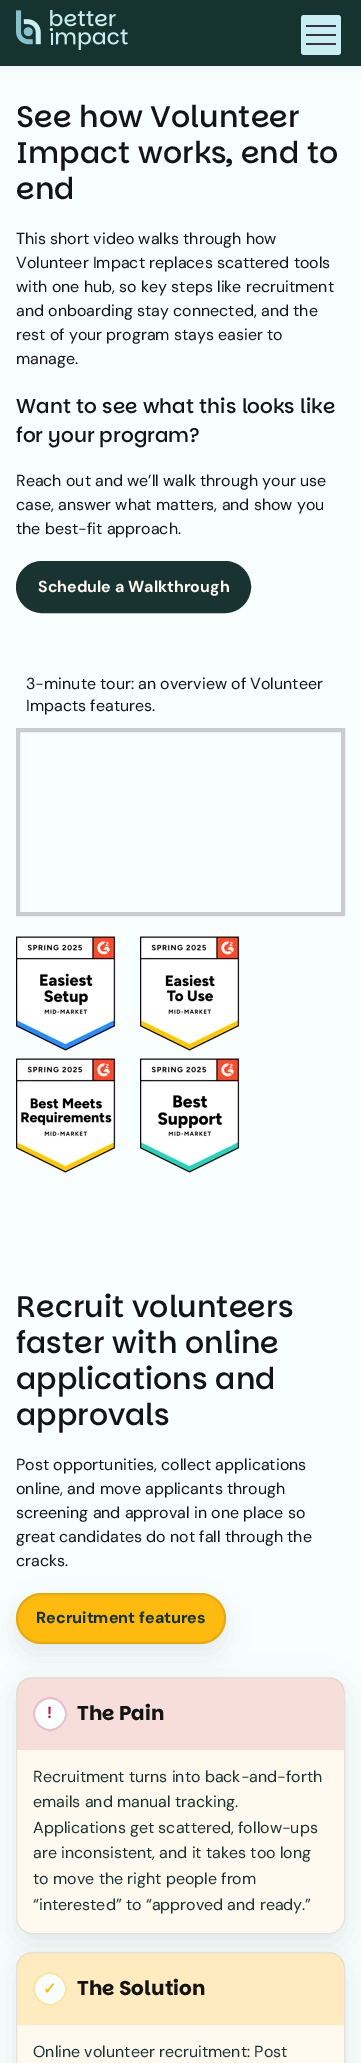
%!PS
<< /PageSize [361 2063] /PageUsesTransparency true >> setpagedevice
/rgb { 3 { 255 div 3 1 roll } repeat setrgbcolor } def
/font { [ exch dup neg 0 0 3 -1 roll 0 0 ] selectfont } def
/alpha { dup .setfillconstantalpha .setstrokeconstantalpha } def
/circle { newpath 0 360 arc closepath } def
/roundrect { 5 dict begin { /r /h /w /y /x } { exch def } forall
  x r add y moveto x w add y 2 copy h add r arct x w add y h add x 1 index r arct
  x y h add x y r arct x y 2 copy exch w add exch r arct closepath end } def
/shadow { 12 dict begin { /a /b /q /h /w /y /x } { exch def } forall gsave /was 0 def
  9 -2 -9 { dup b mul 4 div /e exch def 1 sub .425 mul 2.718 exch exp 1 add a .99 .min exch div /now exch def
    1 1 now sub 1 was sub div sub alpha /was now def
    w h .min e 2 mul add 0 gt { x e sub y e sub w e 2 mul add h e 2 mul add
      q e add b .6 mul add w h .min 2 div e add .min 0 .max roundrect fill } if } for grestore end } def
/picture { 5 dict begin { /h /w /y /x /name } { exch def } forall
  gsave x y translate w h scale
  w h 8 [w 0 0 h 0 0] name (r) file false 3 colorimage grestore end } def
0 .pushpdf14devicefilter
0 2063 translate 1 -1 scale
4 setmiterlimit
248 255 254 rgb
0 0 361 2063 rectfill
36 50 66 rgb
0 2 361 66 0 5 0.07 shadow
23 51 48 rgb
0 0 361 66 rectfill
(img/1.rgb) 16 10 112 40 picture
201 237 242 rgb
301 15 40 40 3 roundrect fill
[
  [306 34 30 2 51 55 61]
  [306 25 30 2 51 55 61]
  [306 43 30 2 51 55 61]
] { aload pop rgb rectfill } forall
24 51 49 rgb
17 562 233 50 25 roundrect gsave fill grestore
2 setlinewidth
stroke
204 204 204 rgb
4 setlinewidth
18 730 325 184 rectstroke
(img/2.rgb) 16 936 100 115 picture
(img/3.rgb) 140 936 100 115 picture
(img/4.rgb) 16 1058 100 115 picture
(img/5.rgb) 140 1058 100 115 picture
0 0 0 rgb
16 1603 210 51 25.5 12 0.08 shadow
255 186 16 rgb
16 1593 210 51 25.5 roundrect fill
0.12 alpha
24 51 49 rgb
2 setlinewidth
17 1594 208 49 24.5 roundrect stroke
1 alpha
0 0 0 rgb
16 1687 329 257 16 15 0.08 shadow
255 249 240 rgb
16 1677 329 257 16 roundrect fill
0.12 alpha
24 51 49 rgb
1 setlinewidth
16.5 1677.5 328 256 15.5 roundrect stroke
191 31 66 rgb
32 1678 moveto 329 1678 lineto 337.5 1678 344 1684.5 344 1693 curveto 344 1750 lineto 17 1750 lineto 17 1693 lineto 17 1684.5 23.5 1678 32 1678 curveto closepath fill
1 alpha
248 255 254 rgb
50 1714 17 circle fill
0.28 alpha
191 31 66 rgb
2 setlinewidth
50 1714 16 circle stroke
1 alpha
0 0 0 rgb
16 1962 329 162 16 15 0.08 shadow
255 249 240 rgb
16 1952 329 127 16 roundrect fill
0.12 alpha
24 51 49 rgb
1 setlinewidth
16.5 1952.5 328 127 15.5 roundrect stroke
0.22 alpha
255 186 16 rgb
32 1953 moveto 329 1953 lineto 337.5 1953 344 1959.5 344 1968 curveto 344 2025 lineto 17 2025 lineto 17 1968 lineto 17 1959.5 23.5 1953 32 1953 curveto closepath fill
1 alpha
248 255 254 rgb
50 1989 17 circle fill
0.38 alpha
255 186 16 rgb
2 setlinewidth
50 1989 16 circle stroke
/Parkinsans-Medium 30 font
1 alpha
20 20 20 rgb
[
  [(See how Volunteer) 16 127]
  [(Impact works, end to) 16 163]
  [(end) 16 199]
] { aload pop moveto show } forall
/DMSans-Regular 16 font
[
  [(This short video walks through how) 16 244]
  [(Volunteer Impact replaces scattered tools) 16 268]
  [(with one hub, so key steps like recruitment) 16 292]
  [(and onboarding stay connected, and the) 16 316]
  [(rest of your program stays easier to) 16 340]
  [(manage.) 16 364]
] { aload pop moveto show } forall
/Parkinsans-Medium 20 font
16 413 moveto (Want to see what this looks like) show
16 442 moveto (for your program?) show
/DMSans-Regular 16 font
[
  [(Reach out and we’ll walk through your use) 16 486]
  [(case, answer what matters, and show you) 16 510]
  [(the best-fit approach.) 16 534]
] { aload pop moveto show } forall
/DMSans-Bold 16 font
255 249 240 rgb
38 592 moveto (Schedule a Walkthrough) show
/DMSans-Regular 16 font
20 20 20 rgb
26 689 moveto (3-minute tour: an overview of Volunteer) show
26 711 moveto (Impacts features.) show
/Parkinsans-Medium 30 font
[
  [(Recruit volunteers) 16 1317]
  [(faster with online) 16 1353]
  [(applications and) 16 1389]
  [(approvals) 16 1425]
] { aload pop moveto show } forall
/DMSans-Regular 16 font
[
  [(Post opportunities, collect applications) 16 1470]
  [(online, and move applicants through) 16 1494]
  [(screening and approval in one place so) 16 1518]
  [(great candidates do not fall through the) 16 1542]
  [(cracks.) 16 1566]
] { aload pop moveto show } forall
/DMSans-ExtraBold 16 font
24 51 49 rgb
36 1623 moveto (Recruitment features) show
191 31 66 rgb
47 1718 moveto (!) show
/Parkinsans-Bold 20 font
20 20 20 rgb
77 1720 moveto (The Pain) show
/DMSans-Regular 16 font
24 51 49 rgb
[
  [(Recruitment turns into back-and-forth) 33 1782]
  [(emails and manual tracking.) 33 1807]
  [(Applications get scattered, follow-ups) 33 1833]
  [(are inconsistent, and it takes too long) 33 1858]
  [(to move the right people from) 33 1884]
  [(“interested” to “approved and ready.”) 33 1910]
] { aload pop moveto show } forall
/DejaVuSans-Bold 16 font
255 186 16 rgb
43 1994 moveto (✓) show
/Parkinsans-Bold 20 font
20 20 20 rgb
77 1995 moveto (The Solution) show
/DMSans-Regular 16 font
24 51 49 rgb
33 2057 moveto (Online volunteer recruitment: Post) show
.poppdf14devicefilter showpage
